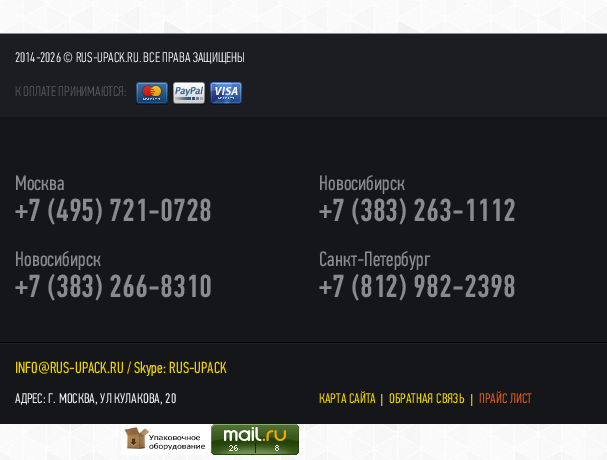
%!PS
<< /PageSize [607 460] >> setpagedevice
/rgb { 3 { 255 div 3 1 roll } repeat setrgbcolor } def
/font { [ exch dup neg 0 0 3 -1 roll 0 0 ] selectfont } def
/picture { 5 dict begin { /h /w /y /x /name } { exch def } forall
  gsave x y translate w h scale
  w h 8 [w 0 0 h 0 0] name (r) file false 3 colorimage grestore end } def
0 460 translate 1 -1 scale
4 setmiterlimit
255 255 255 rgb
0 0 607 460 rectfill
(img/1.rgb) 0 0 607 460 picture
[
  [0 117 607 307 20 22 26]
  [0 33 607 1 143 144 146]
  [0 34 607 83 28 29 35]
] { aload pop rgb rectfill } forall
(img/2.rgb) 136 82 32 23 picture
(img/3.rgb) 173 82 32 23 picture
(img/4.rgb) 210 82 32 23 picture
0 0 0 rgb
0 342 607 1 rectfill
31 33 38 rgb
0 343 607 1 rectfill
(img/5.rgb) 381 394 2 12 picture
(img/5.rgb) 471 394 2 12 picture
(img/6.rgb) 121 424 88 31 picture
(img/7.rgb) 211 424 88 31 picture
/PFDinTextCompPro-Light 14 font
255 255 255 rgb
15 62 moveto (2014-2026 © RUS-UPACK.RU. ВСЕ ПРАВА ЗАЩИЩЕНЫ) show
88 89 94 rgb
15 96 moveto (К ОПЛАТЕ ПРИНИМАЮТСЯ:) show
/PFDinTextCompPro-Regular 21 font
137 138 141 rgb
15 190 moveto (Москва) show
/PFDinTextCompPro-Medium 32 font
15 221 moveto (+7 \(495\) 721-0728) show
/PFDinTextCompPro-Regular 21 font
319 190 moveto (Новосибирск) show
/PFDinTextCompPro-Medium 32 font
319 221 moveto (+7 \(383\) 263-1112) show
/PFDinTextCompPro-Regular 21 font
15 266 moveto (Новосибирск) show
/PFDinTextCompPro-Medium 32 font
15 297 moveto (+7 \(383\) 266-8310) show
/PFDinTextCompPro-Regular 21 font
319 266 moveto (Санкт-Петербург) show
/PFDinTextCompPro-Medium 32 font
319 297 moveto (+7 \(812\) 982-2398) show
/PFDinTextCompPro-Regular 16 font
237 208 6 rgb
15 373 moveto (INFO@RUS-UPACK.RU / Skype: RUS-UPACK) show
/PFDinTextCompPro-Regular 14 font
237 237 237 rgb
15 403 moveto (АДРЕС: Г. МОСКВА, УЛ КУЛАКОВА, 20) show
237 208 6 rgb
319 403 moveto (КАРТА САЙТА) show
389 403 moveto (ОБРАТНАЯ СВЯЗЬ) show
219 88 26 rgb
479 403 moveto (ПРАЙС ЛИСТ) show
showpage
